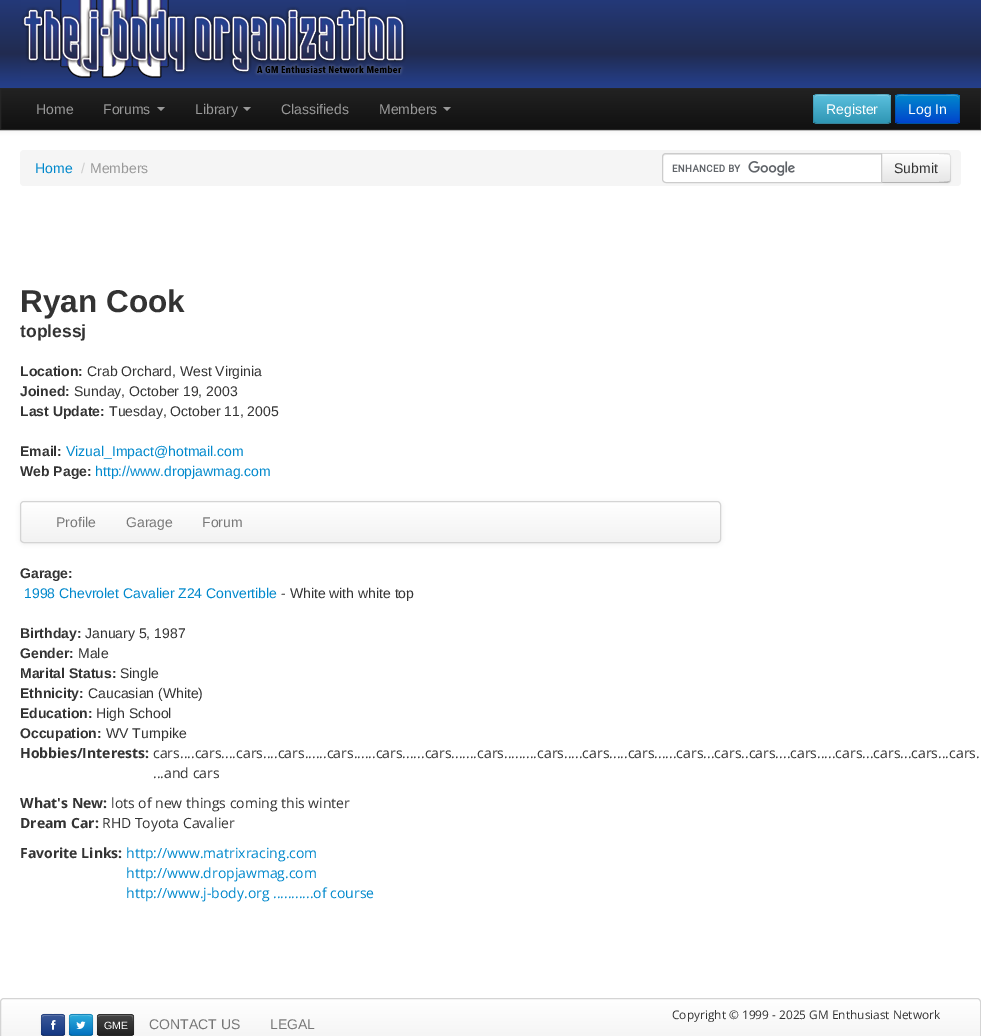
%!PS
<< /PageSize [981 1036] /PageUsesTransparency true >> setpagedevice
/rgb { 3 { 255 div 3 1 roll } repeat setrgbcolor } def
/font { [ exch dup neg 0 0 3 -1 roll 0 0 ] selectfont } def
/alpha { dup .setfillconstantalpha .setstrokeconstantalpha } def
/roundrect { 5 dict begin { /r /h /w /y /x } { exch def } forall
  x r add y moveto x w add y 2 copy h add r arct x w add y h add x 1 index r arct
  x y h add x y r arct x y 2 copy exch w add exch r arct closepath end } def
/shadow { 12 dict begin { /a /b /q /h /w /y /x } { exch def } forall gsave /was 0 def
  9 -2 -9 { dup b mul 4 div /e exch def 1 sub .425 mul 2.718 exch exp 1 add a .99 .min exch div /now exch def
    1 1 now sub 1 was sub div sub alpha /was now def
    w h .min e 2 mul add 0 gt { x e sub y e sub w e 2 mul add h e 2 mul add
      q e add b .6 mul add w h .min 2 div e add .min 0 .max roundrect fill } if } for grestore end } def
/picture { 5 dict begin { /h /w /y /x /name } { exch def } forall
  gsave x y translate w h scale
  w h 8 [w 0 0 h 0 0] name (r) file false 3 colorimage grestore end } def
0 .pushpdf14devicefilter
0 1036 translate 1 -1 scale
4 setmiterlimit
255 255 255 rgb
0 0 981 1036 rectfill
gsave 0 0 moveto 981 0 lineto 981 88 lineto 0 88 lineto closepath clip newpath
<< /ShadingType 2 /ColorSpace /DeviceRGB /Coords [491 -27 491 88] /Extend [true true] /Function << /FunctionType 3 /Domain [0 1] /Functions [<< /FunctionType 2 /Domain [0 1] /C0 [0.145 0.251 0.557] /C1 [0.129 0.169 0.314] /N 1 >> << /FunctionType 2 /Domain [0 1] /C0 [0.129 0.169 0.314] /C1 [0.145 0.251 0.557] /N 1 >>] /Bounds [0.7] /Encode [0 1 0 1] >> >> shfill grestore
(img/1.rgb) 21 0 385 78 picture
0 0 0 rgb
0 89 981 42 0 2 0.07 shadow
gsave 1 89 moveto 980 89 lineto 980 129 lineto 1 129 lineto closepath clip newpath
<< /ShadingType 2 /ColorSpace /DeviceRGB /Coords [491 89 491 129] /Extend [true true] /Function << /FunctionType 2 /Domain [0 1] /C0 [0.133 0.133 0.133] /C1 [0.067 0.067 0.067] /N 1 >> >> shfill grestore
37 37 37 rgb
0.5 88.5 980 41 rectstroke
153 153 153 rgb
157 107 moveto 165 107 lineto 161 111 lineto closepath fill
243 107 moveto 251 107 lineto 247 111 lineto closepath fill
443 107 moveto 451 107 lineto 447 111 lineto closepath fill
73 175 205 rgb
813 94 78 30 4 roundrect fill
gsave
813 94 78 30 4 roundrect clip newpath
gsave 813 95 moveto 891 95 lineto 891 123 lineto 813 123 lineto closepath clip newpath
<< /ShadingType 2 /ColorSpace /DeviceRGB /Coords [852 95 852 123] /Extend [true true] /Function << /FunctionType 2 /Domain [0 1] /C0 [0.357 0.753 0.871] /C1 [0.184 0.588 0.706] /N 1 >> >> shfill grestore
grestore
0.2 alpha
255 255 255 rgb
817 96 moveto 887 96 lineto 889 96 890 97 890 99 curveto 890 92 879 95 875 95 curveto 829 95 lineto 825 95 814 92 814 99 curveto 814 97 815 96 817 96 curveto closepath fill
0.25 alpha
0 0 0 rgb
889.5 122.5 moveto 889 123 888 123.5 887 123.5 curveto 817 123.5 lineto 816 123.5 815 123 814.5 122.5 curveto stroke
0.1 alpha
814.5 122.5 moveto 812.5 120.5 813.5 112 813.5 109 curveto 813.5 92.5 811 94.5 828.5 94.5 curveto 875.5 94.5 lineto 893 94.5 890.5 92.5 890.5 109 curveto 890.5 112 891.5 120.5 889.5 122.5 curveto stroke
1 alpha
0 109 204 rgb
895 94 65 30 4 roundrect fill
gsave
895 94 65 30 4 roundrect clip newpath
gsave 895 95 moveto 960 95 lineto 960 123 lineto 895 123 lineto closepath clip newpath
<< /ShadingType 2 /ColorSpace /DeviceRGB /Coords [928 95 928 123] /Extend [true true] /Function << /FunctionType 2 /Domain [0 1] /C0 [0 0.533 0.8] /C1 [0 0.267 0.8] /N 1 >> >> shfill grestore
grestore
51 159 214 rgb
899 96 moveto 956 96 lineto 958 96 959 97 959 99 curveto 959 93 951 95 946 95 curveto 908 95 lineto 904 95 896 93 896 99 curveto 896 97 897 96 899 96 curveto closepath fill
0.25 alpha
0 0 0 rgb
958.5 122.5 moveto 956.5 123.5 lineto 898.5 123.5 lineto 896.5 122.5 lineto stroke
0.1 alpha
896.5 122.5 moveto 894.5 120.5 895.5 112 895.5 109 curveto 895.5 93.5 893 94.5 908.5 94.5 curveto 946.5 94.5 lineto 962 94.5 959.5 93.5 959.5 109 curveto 959.5 112 960.5 120.5 958.5 122.5 curveto stroke
1 alpha
245 245 245 rgb
20 150 941 36 4 roundrect fill
0 0 0 rgb
881 154 70 30 4 1 0.05 shadow
245 245 245 rgb
881 153 moveto 947 153 lineto 949 153 951 155 951 157 curveto 951 179 lineto 951 181 949 183 947 183 curveto 881 183 lineto closepath fill
gsave
881 153 moveto 947 153 lineto 949 153 951 155 951 157 curveto 951 179 lineto 951 181 949 183 947 183 curveto 881 183 lineto closepath clip newpath
gsave 882 154 moveto 951 154 lineto 951 182 lineto 882 182 lineto closepath clip newpath
<< /ShadingType 2 /ColorSpace /DeviceRGB /Coords [916 154 916 182] /Extend [true true] /Function << /FunctionType 2 /Domain [0 1] /C0 [1 1 1] /C1 [0.902 0.902 0.902] /N 1 >> >> shfill grestore
grestore
0.1 alpha
0 0 0 rgb
881 153 moveto 882 154 lineto 889 154 948 153 949 155 curveto 950 154 lineto 947 153 lineto closepath fill
951 179 moveto 951 157 lineto 951 156 950.5 155 950 154 curveto 949 155 lineto 950 155 950 156 950 157 curveto 950 179 lineto 950 180 950 181 949 181 curveto 950 182 lineto 950.5 181 951 180 951 179 curveto closepath fill
1 alpha
179 179 179 rgb
947 183 moveto 950 182 lineto 949 181 lineto 948 183 889 182 882 182 curveto 881 183 lineto closepath fill
255 255 255 rgb
666 153 moveto 882 153 lineto 882 183 lineto 666 183 lineto 664 183 662 181 662 179 curveto 662 157 lineto 662 155 664 153 666 153 curveto closepath fill
(img/2.rgb) 672 161 123 15 picture
236 236 236 rgb
666 155 moveto 881 155 lineto 881 154 lineto 666 154 lineto 664 154 663 155 663 157 curveto 663 158 lineto 663 156 664 155 666 155 curveto closepath fill
204 204 204 rgb
666 153.5 moveto 881.5 153.5 lineto 881.5 182.5 lineto 666 182.5 lineto 664 182.5 662.5 181 662.5 179 curveto 662.5 157 lineto 662.5 155 664 153.5 666 153.5 curveto closepath stroke
0 0 0 rgb
20 502 701 42 4 2 0.07 shadow
gsave
20 501 701 42 4 roundrect clip newpath
gsave 20 502 moveto 721 502 lineto 721 542 lineto 20 542 lineto closepath clip newpath
<< /ShadingType 2 /ColorSpace /DeviceRGB /Coords [371 502 371 542] /Extend [true true] /Function << /FunctionType 2 /Domain [0 1] /C0 [1 1 1] /C1 [0.949 0.949 0.949] /N 1 >> >> shfill grestore
grestore
212 212 212 rgb
20.5 501.5 700 41 3.5 roundrect stroke
gsave
0 998 981 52 4 roundrect clip newpath
gsave 0 999 moveto 981 999 lineto 981 1036 lineto 0 1036 lineto closepath clip newpath
<< /ShadingType 2 /ColorSpace /DeviceRGB /Coords [491 999 491 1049] /Extend [true true] /Function << /FunctionType 2 /Domain [0 1] /C0 [1 1 1] /C1 [0.949 0.949 0.949] /N 1 >> >> shfill grestore
grestore
0.5 998.5 980 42 3.5 roundrect stroke
0 0 0 rgb
41 1015 24 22 3 1 0.05 shadow
43 75 144 rgb
41 1014 24 22 3 roundrect fill
gsave
41 1014 24 22 3 roundrect clip newpath
gsave 41 1015 moveto 65 1015 lineto 65 1035 lineto 41 1035 lineto closepath clip newpath
<< /ShadingType 2 /ColorSpace /DeviceRGB /Coords [53 1015 53 1035] /Extend [true true] /Function << /FunctionType 2 /Domain [0 1] /C0 [0.231 0.349 0.596] /C1 [0.075 0.216 0.514] /N 1 >> >> shfill grestore
grestore
97 121 172 rgb
44 1016 moveto 48.5 1016 61.5 1014.5 64 1017 curveto 64 1016 63 1015 62 1015 curveto 44 1015 lineto 43 1015 42 1016 42 1017 curveto 42 1017.5 lineto 42.5 1016.5 43 1016 44 1016 curveto closepath 64 1032 moveto 64 1034 lineto closepath 42 1033.5 moveto 42 1029 lineto closepath eofill
0.25 alpha
0 0 0 rgb
64 1035 moveto 63.5 1035 62.5 1035.5 62 1035.5 curveto 44 1035.5 lineto 43.5 1035.5 42.5 1035 42 1035 curveto stroke
0.1 alpha
42 1035 moveto 41 1033.5 41.5 1031.5 41.5 1030.5 curveto 41.5 1025 lineto 41.5 1012.5 40 1014.5 53 1014.5 curveto 66 1014.5 64.5 1012.5 64.5 1025 curveto 64.5 1030.5 lineto 64.5 1031.5 65 1033.5 64 1035 curveto stroke
1 alpha
(img/3.rgb) 51 1020 5 10 picture
69 1015 24 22 3 1 0.05 shadow
28 149 208 rgb
69 1014 24 22 3 roundrect fill
gsave
69 1014 24 22 3 roundrect clip newpath
gsave 69 1015 moveto 93 1015 lineto 93 1035 lineto 69 1035 lineto closepath clip newpath
<< /ShadingType 2 /ColorSpace /DeviceRGB /Coords [81 1015 81 1035] /Extend [true true] /Function << /FunctionType 2 /Domain [0 1] /C0 [0.176 0.678 0.863] /C1 [0.008 0.443 0.749] /N 1 >> >> shfill grestore
grestore
0.2 alpha
255 255 255 rgb
72 1016 moveto 76.5 1016 89.5 1014.5 92 1017 curveto 92 1016 91 1015 90 1015 curveto 72 1015 lineto 71 1015 70 1016 70 1017 curveto 70 1017.5 lineto 70.5 1016.5 71 1016 72 1016 curveto closepath 92 1032 moveto 92 1034 lineto closepath 70 1033.5 moveto 70 1029 lineto closepath eofill
0.25 alpha
0 0 0 rgb
92 1035 moveto 91.5 1035 90.5 1035.5 90 1035.5 curveto 72 1035.5 lineto 71.5 1035.5 70.5 1035 70 1035 curveto stroke
0.1 alpha
70 1035 moveto 69 1033.5 69.5 1031.5 69.5 1030.5 curveto 69.5 1025 lineto 69.5 1012.5 68 1014.5 81 1014.5 curveto 94 1014.5 92.5 1012.5 92.5 1025 curveto 92.5 1030.5 lineto 92.5 1031.5 93 1033.5 92 1035 curveto stroke
1 alpha
(img/4.rgb) 76 1021 10 8 picture
97 1015 37 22 3 1 0.05 shadow
54 54 54 rgb
97 1014 37 22 3 roundrect fill
gsave
97 1014 37 22 3 roundrect clip newpath
gsave 97 1015 moveto 134 1015 lineto 134 1035 lineto 97 1035 lineto closepath clip newpath
<< /ShadingType 2 /ColorSpace /DeviceRGB /Coords [116 1015 116 1035] /Extend [true true] /Function << /FunctionType 2 /Domain [0 1] /C0 [0.267 0.267 0.267] /C1 [0.133 0.133 0.133] /N 1 >> >> shfill grestore
grestore
105 105 105 rgb
100 1016 moveto 130.5 1016 lineto 132 1016.5 lineto 133 1017.5 133 1019.5 133 1021 curveto 133 1017 lineto 133 1016 132 1015 131 1015 curveto 100 1015 lineto 99 1015 98 1016 98 1017 curveto closepath 98 1033.5 moveto 98 1029 lineto closepath eofill
0.25 alpha
0 0 0 rgb
133 1035 moveto 132.5 1035 131.5 1035.5 131 1035.5 curveto 100 1035.5 lineto 99.5 1035.5 98.5 1035 98 1035 curveto stroke
0.1 alpha
98 1035 moveto 97 1033.5 97.5 1031.5 97.5 1030.5 curveto 97.5 1025 lineto 97.5 1014.5 95.5 1014.5 105 1014.5 curveto 126 1014.5 lineto 135.5 1014.5 133.5 1014.5 133.5 1025 curveto 133.5 1030.5 lineto 133.5 1031.5 134 1033.5 133 1035 curveto stroke
/LiberationSans-Regular 14 font
1 alpha
153 153 153 rgb
[
  [(Home) 36 114]
  [(Forums) 103 114]
  [(Library) 195 114]
  [(Classifieds) 281 114]
  [(Members) 379 114]
] { aload pop moveto show } forall
255 255 255 rgb
826 114 moveto (Register) show
908 114 moveto (Log In) show
0 136 204 rgb
35 173 moveto (Home) show
204 204 204 rgb
81 173 moveto (/) show
153 153 153 rgb
90 173 moveto (Members) show
51 51 51 rgb
894 173 moveto (Submit) show
/LiberationSans-Bold 31.5 font
20 312 moveto (Ryan Cook) show
/LiberationSans-Bold 17.5 font
20 337 moveto (toplessj) show
/LiberationSans-Bold 14 font
20 376 moveto (Location:) show
/LiberationSans-Regular 14 font
87 376 moveto (Crab Orchard, West Virginia) show
/LiberationSans-Bold 14 font
20 396 moveto (Joined:) show
/LiberationSans-Regular 14 font
74 396 moveto (Sunday, October 19, 2003) show
/LiberationSans-Bold 14 font
20 416 moveto (Last Update:) show
/LiberationSans-Regular 14 font
109 416 moveto (Tuesday, October 11, 2005) show
/LiberationSans-Bold 14 font
20 456 moveto (Email:) show
/LiberationSans-Regular 14 font
0 136 204 rgb
66 456 moveto (Vizual_Impact@hotmail.com) show
/LiberationSans-Bold 14 font
51 51 51 rgb
20 476 moveto (Web Page:) show
/LiberationSans-Regular 14 font
0 136 204 rgb
95 476 moveto (http://www.dropjawmag.com) show
119 119 119 rgb
[
  [(Profile) 56 527]
  [(Garage) 126 527]
  [(Forum) 202 527]
] { aload pop moveto show } forall
/LiberationSans-Bold 14 font
51 51 51 rgb
20 578 moveto (Garage:) show
/LiberationSans-Regular 14 font
0 136 204 rgb
24 598 moveto (1998 Chevrolet Cavalier Z24 Convertible) show
51 51 51 rgb
281 598 moveto (- White with white top) show
/LiberationSans-Bold 14 font
20 638 moveto (Birthday:) show
/LiberationSans-Regular 14 font
85 638 moveto (January 5, 1987) show
/LiberationSans-Bold 14 font
20 658 moveto (Gender:) show
/LiberationSans-Regular 14 font
78 658 moveto (Male) show
/LiberationSans-Bold 14 font
20 678 moveto (Marital Status:) show
/LiberationSans-Regular 14 font
120 678 moveto (Single) show
/LiberationSans-Bold 14 font
20 698 moveto (Ethnicity:) show
/LiberationSans-Regular 14 font
88 698 moveto (Caucasian \(White\)) show
/LiberationSans-Bold 14 font
20 718 moveto (Education:) show
/LiberationSans-Regular 14 font
96 718 moveto (High School) show
/LiberationSans-Bold 14 font
20 738 moveto (Occupation:) show
/LiberationSans-Regular 14 font
106 738 moveto (WV Turnpike) show
/OpenSans-Bold 14 font
20 758 moveto (Hobbies/Interests:) show
/OpenSans-Regular 14 font
153 758 moveto (cars....cars....cars....cars......cars......cars......cars.......cars.........cars.....cars.....cars......cars...cars..cars....cars.....cars...cars...cars...cars.) show
153 778 moveto (...and cars) show
/OpenSans-Bold 14 font
20 808 moveto (What's New:) show
/OpenSans-Regular 14 font
111 808 moveto (lots of new things coming this winter) show
/OpenSans-Bold 14 font
20 828 moveto (Dream Car:) show
/OpenSans-Regular 14 font
102 828 moveto (RHD Toyota Cavalier) show
/OpenSans-Bold 14 font
20 858 moveto (Favorite Links:) show
/OpenSans-Regular 14 font
0 136 204 rgb
[
  [(http://www.matrixracing.com) 126 858]
  [(http://www.dropjawmag.com) 126 878]
  [(http://www.j-body.org ...........of course) 126 898]
] { aload pop moveto show } forall
/OpenSans-Regular 11.9 font
51 51 51 rgb
672 1019 moveto (Copyright © 1999 - 2025 GM Enthusiast Network) show
/LiberationSans-Regular 10.5 font
255 255 255 rgb
104 1029 moveto (GME) show
/LiberationSans-Regular 14 font
119 119 119 rgb
149 1029 moveto (CONTACT US) show
270 1029 moveto (LEGAL) show
.poppdf14devicefilter showpage
